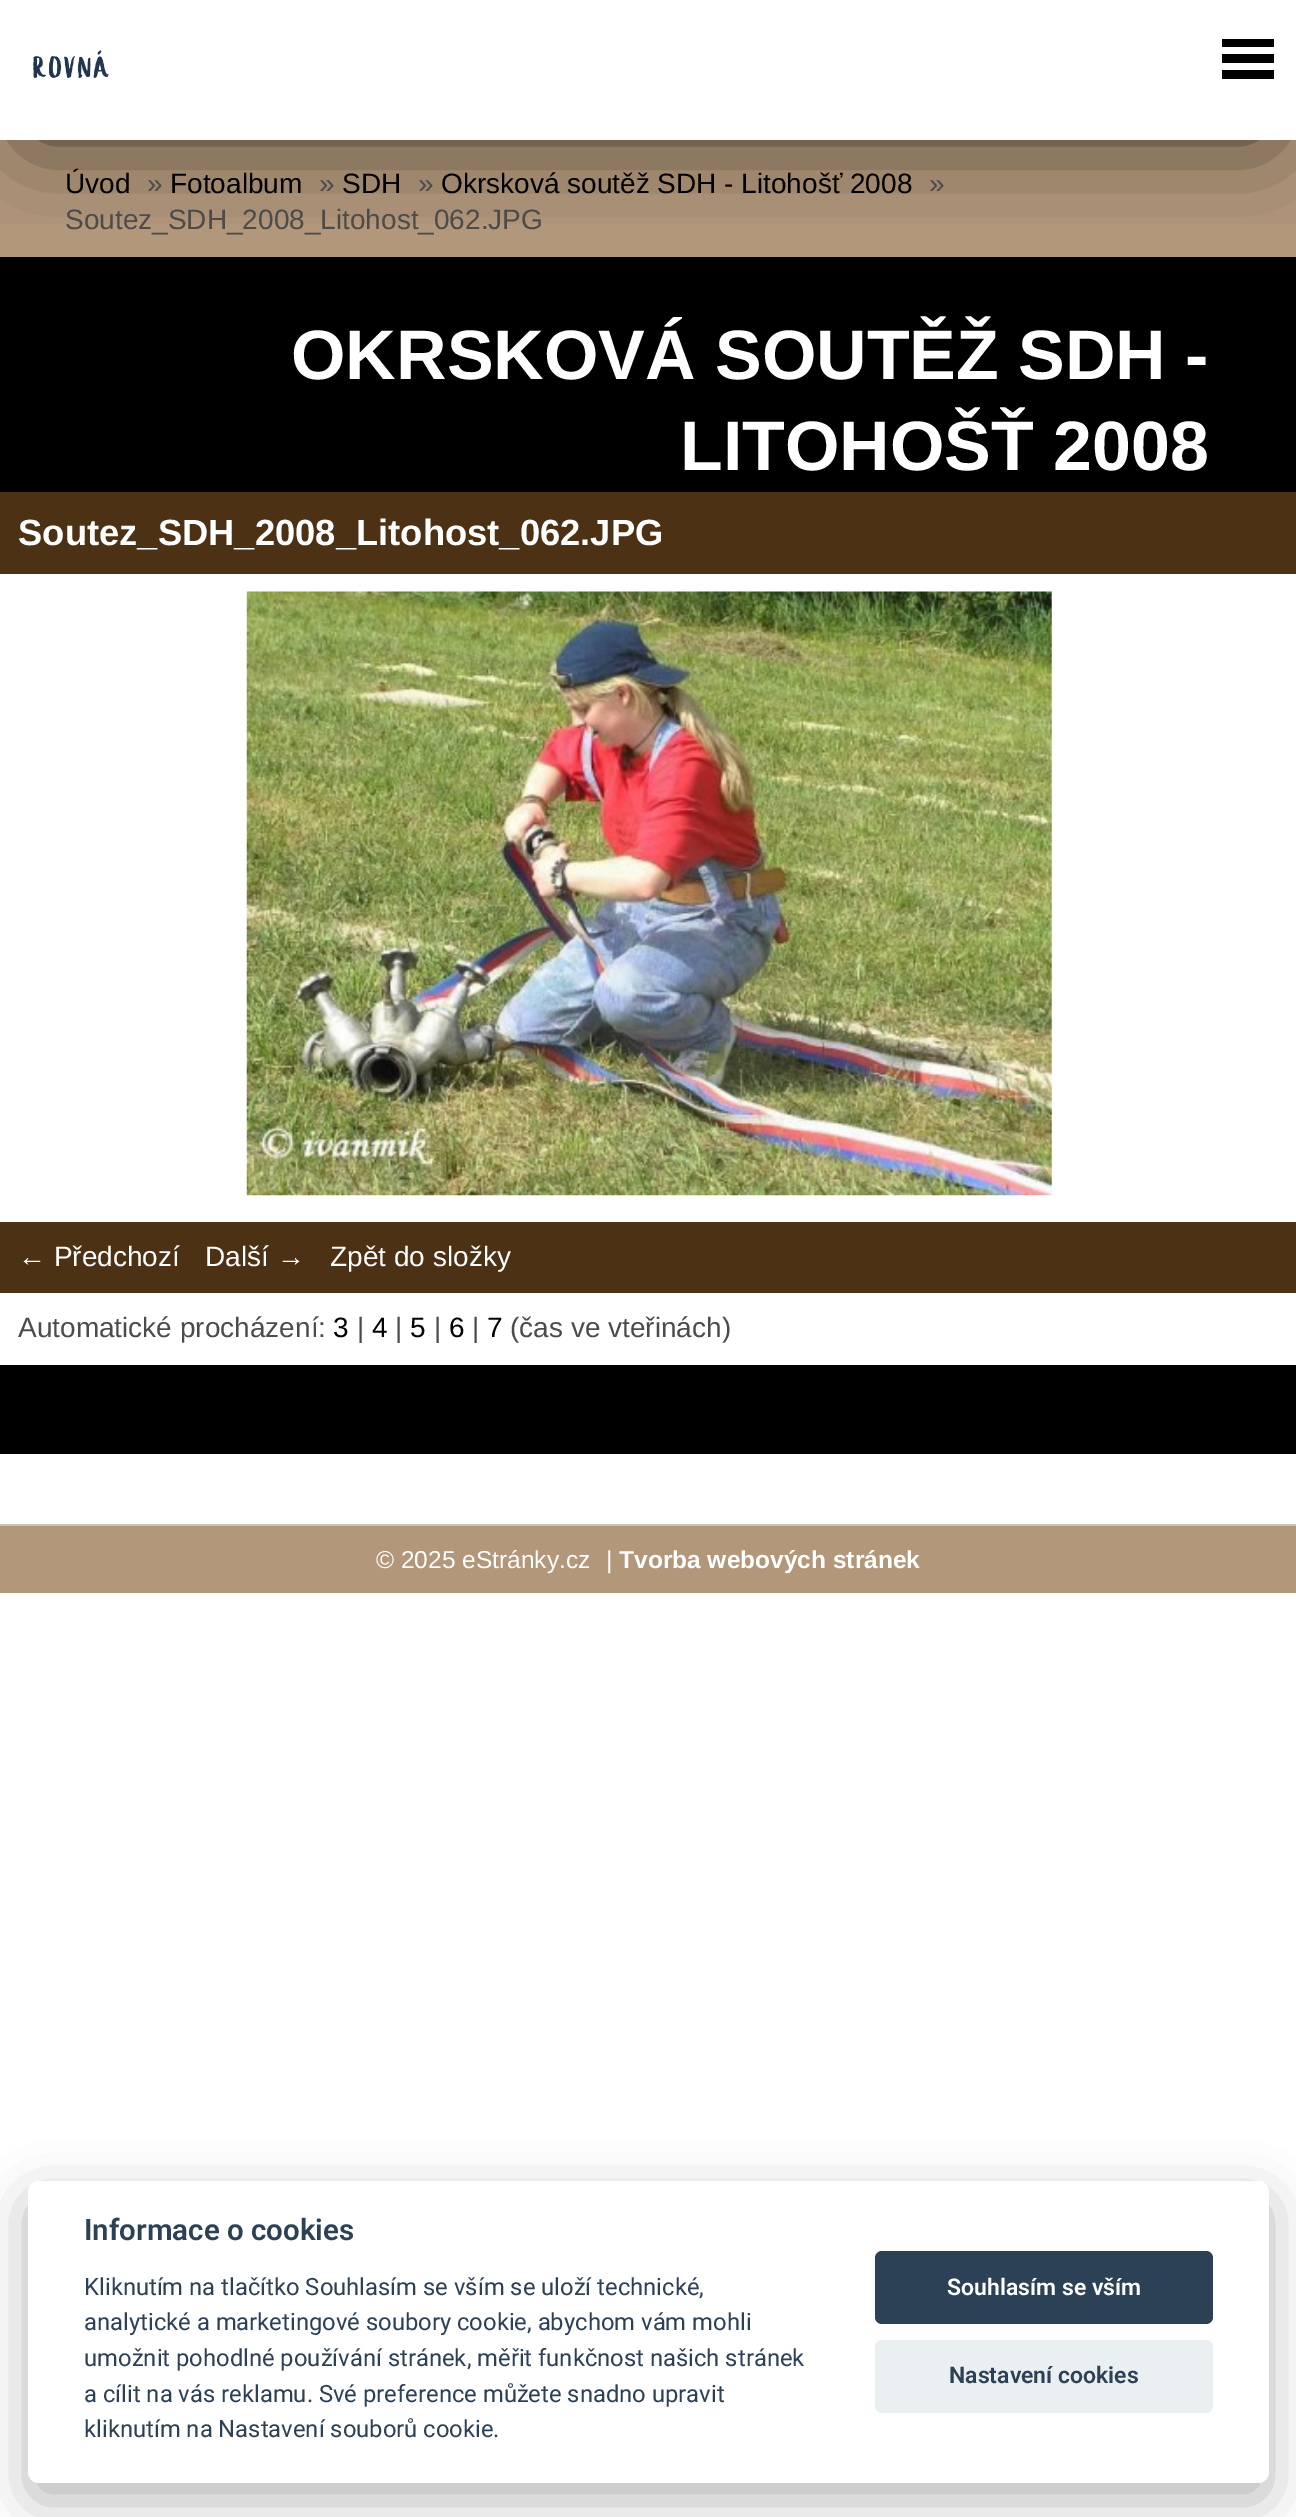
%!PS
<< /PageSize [1296 2517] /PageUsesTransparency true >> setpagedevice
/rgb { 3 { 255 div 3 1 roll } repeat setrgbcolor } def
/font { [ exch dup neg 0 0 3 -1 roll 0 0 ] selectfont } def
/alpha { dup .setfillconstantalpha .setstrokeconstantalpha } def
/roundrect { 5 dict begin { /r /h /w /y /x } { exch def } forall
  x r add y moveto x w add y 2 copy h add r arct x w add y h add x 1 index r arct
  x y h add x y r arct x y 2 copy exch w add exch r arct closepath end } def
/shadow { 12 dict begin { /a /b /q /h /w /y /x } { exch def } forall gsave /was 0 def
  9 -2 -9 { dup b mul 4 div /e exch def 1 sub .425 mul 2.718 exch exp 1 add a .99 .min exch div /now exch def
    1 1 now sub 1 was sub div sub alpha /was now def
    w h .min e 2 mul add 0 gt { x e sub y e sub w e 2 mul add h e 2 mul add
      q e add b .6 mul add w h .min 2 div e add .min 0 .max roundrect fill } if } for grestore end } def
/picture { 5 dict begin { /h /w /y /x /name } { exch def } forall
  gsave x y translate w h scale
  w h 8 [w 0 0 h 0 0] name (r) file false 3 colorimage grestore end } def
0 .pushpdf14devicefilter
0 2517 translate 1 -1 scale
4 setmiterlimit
255 255 255 rgb
0 0 1296 2517 rectfill
178 151 123 rgb
0 140 1296 117 rectfill
0 0 0 rgb
0 257 1296 1197 rectfill
gsave
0 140 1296 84 rectclip
32 58 1233 77 0 47 0.7 shadow
grestore
(img/1.rgb) 33 50 76 28 picture
[
  [1222 39 52 8 0 0 0]
  [1222 54 52 9 0 0 0]
  [1222 70 52 9 0 0 0]
  [0 492 1296 82 76 49 20]
  [0 574 1296 648 255 255 255]
] { aload pop rgb rectfill } forall
(img/2.rgb) 246 591 806 605 picture
[
  [0 1222 1296 71 76 49 20]
  [0 1293 1296 72 255 255 255]
  [0 1524 1296 2 194 194 194]
  [0 1526 1296 67 178 151 122]
] { aload pop rgb rectfill } forall
2 2 3 rgb
28 2198 1241 303 11 26 0.28 shadow
255 255 255 rgb
28 2181 1241 302 11 roundrect fill
45 65 86 rgb
875 2251 338 73 7 roundrect fill
234 239 242 rgb
875 2340 338 73 7 roundrect fill
/LiberationSans-Regular 28 font
0 0 0 rgb
65 193 moveto (Úvod) show
75 75 75 rgb
147 193 moveto (») show
0 0 0 rgb
170 193 moveto (Fotoalbum) show
75 75 75 rgb
319 193 moveto (») show
0 0 0 rgb
342 193 moveto (SDH) show
75 75 75 rgb
418 193 moveto (») show
0 0 0 rgb
441 193 moveto (Okrsková soutěž SDH - Litohošť 2008) show
75 75 75 rgb
929 193 moveto (») show
65 229 moveto (Soutez_SDH_2008_Litohost_062.JPG) show
/LiberationSans-Bold 70 font
255 255 255 rgb
291 379 moveto (OKRSKOVÁ SOUTĚŽ SDH -) show
680 470 moveto (LITOHOŠŤ 2008) show
/LiberationSans-Bold 36.4 font
18 545 moveto (Soutez_SDH_2008_Litohost_062.JPG) show
/LiberationSans-Regular 28 font
[
  [(← Předchozí) 18 1266]
  [(Další →) 205 1266]
  [(Zpět do složky) 330 1266]
] { aload pop moveto show } forall
75 75 75 rgb
18 1337 moveto (Automatické procházení:) show
0 0 0 rgb
333 1337 moveto (3) show
75 75 75 rgb
357 1337 moveto (|) show
0 0 0 rgb
372 1337 moveto (4) show
75 75 75 rgb
395 1337 moveto (|) show
0 0 0 rgb
410 1337 moveto (5) show
75 75 75 rgb
434 1337 moveto (|) show
0 0 0 rgb
449 1337 moveto (6) show
75 75 75 rgb
472 1337 moveto (|) show
0 0 0 rgb
487 1337 moveto (7) show
75 75 75 rgb
510 1337 moveto (\(čas ve vteřinách\)) show
/LiberationSans-Regular 24.5 font
255 255 255 rgb
376 1568 moveto (© 2025 eStránky.cz) show
606 1568 moveto (|) show
/LiberationSans-Bold 24.5 font
619 1568 moveto (Tvorba webových stránek) show
/Roboto-SemiBold 29.5 font
45 65 86 rgb
84 2240 moveto (Informace o cookies) show
/Roboto-Regular 23.8 font
[
  [(Kliknutím na tlačítko Souhlasím se vším se uloží technické,) 84 2295]
  [(analytické a marketingové soubory cookie, abychom vám mohli) 84 2330]
  [(umožnit pohodlné používání stránek, měřit funkčnost našich stránek) 84 2366]
  [(a cílit na vás reklamu. Své preference můžete snadno upravit) 84 2402]
  [(kliknutím na Nastavení souborů cookie.) 84 2437]
] { aload pop moveto show } forall
/Roboto-SemiBold 23 font
255 255 255 rgb
947 2295 moveto (Souhlasím se vším) show
45 65 86 rgb
949 2383 moveto (Nastavení cookies) show
.poppdf14devicefilter showpage
